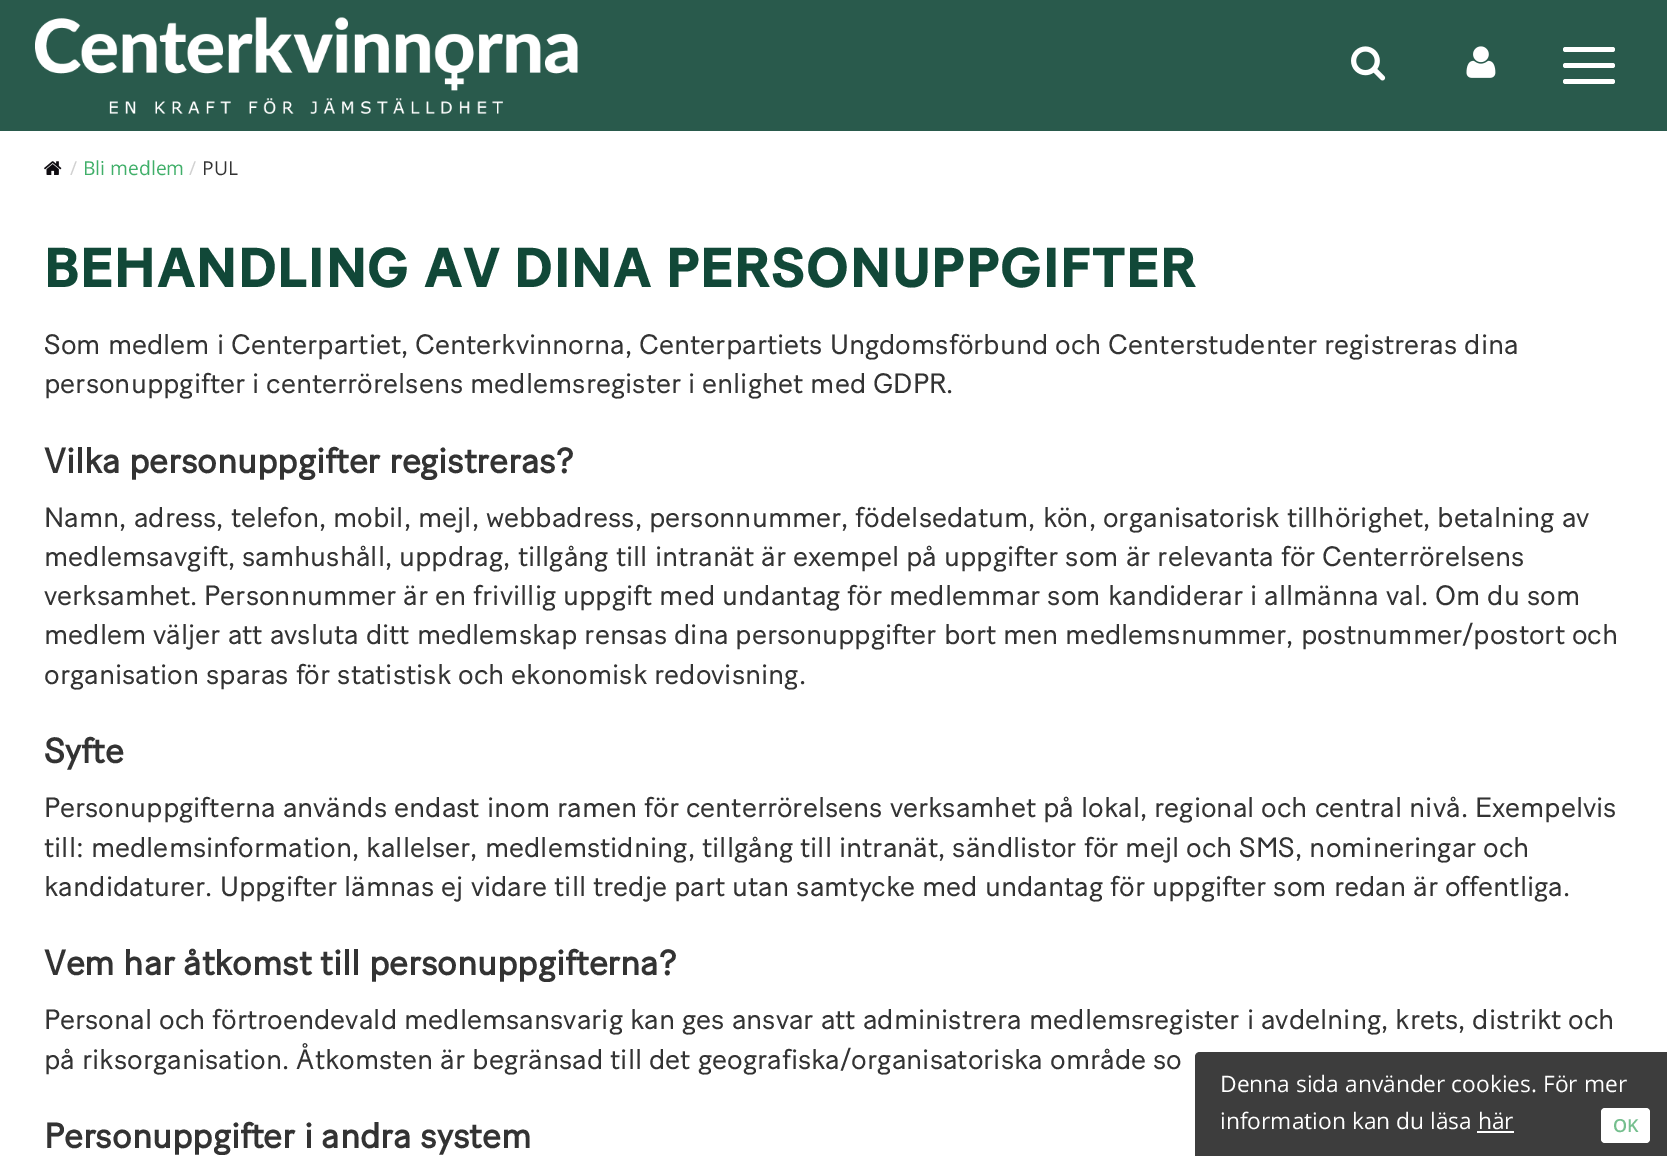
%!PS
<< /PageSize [1667 1156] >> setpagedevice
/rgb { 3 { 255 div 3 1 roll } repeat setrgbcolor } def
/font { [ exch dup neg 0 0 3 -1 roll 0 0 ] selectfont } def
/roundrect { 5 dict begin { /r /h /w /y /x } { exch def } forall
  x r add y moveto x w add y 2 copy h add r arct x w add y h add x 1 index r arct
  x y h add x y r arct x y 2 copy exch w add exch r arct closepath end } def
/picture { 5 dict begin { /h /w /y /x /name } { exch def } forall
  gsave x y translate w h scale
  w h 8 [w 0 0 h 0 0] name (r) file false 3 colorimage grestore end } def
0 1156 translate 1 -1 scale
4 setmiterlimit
255 255 255 rgb
0 0 1667 1156 rectfill
41 90 76 rgb
0 0 1667 131 rectfill
(img/1.rgb) 35 17 543 97 picture
(img/2.rgb) 1351 46 35 35 picture
(img/3.rgb) 1466 46 30 32 picture
255 255 255 rgb
1563 47 52 5 2.5 roundrect fill
1563 63 52 5 2.5 roundrect fill
1563 79 52 5 2.5 roundrect fill
(img/4.rgb) 44 161 18 14 picture
61 61 61 rgb
1200 1052 moveto 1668 1052 lineto 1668 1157 lineto 1195 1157 lineto 1195 1057 lineto 1195 1054 1197 1052 1200 1052 curveto closepath fill
255 255 255 rgb
1601 1108 49 35 4 roundrect fill
1477 1131 37 2 rectfill
/OpenSans-Regular 19.25 font
209 209 209 rgb
70 175 moveto (/) show
64 175 105 rgb
83 175 moveto (Bli medlem) show
209 209 209 rgb
189 175 moveto (/) show
51 51 51 rgb
202 175 moveto (PUL) show
/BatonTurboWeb-Bold 56 font
17 72 56 rgb
44 287 moveto 0.55 0 (BEHANDLING AV DINA PERSONUPPGIFTER) ashow
/BatonTurboWeb-Regular 28 font
51 51 51 rgb
44 354 moveto (Som medlem i Centerpartiet, Centerkvinnorna, Centerpartiets Ungdomsförbund och Centerstudenter registreras dina) show
44 393 moveto (personuppgifter i centerrörelsens medlemsregister i enlighet med GDPR.) show
/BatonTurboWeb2-Bold 35 font
44 473 moveto (Vilka personuppgifter registreras?) show
/BatonTurboWeb-Regular 28 font
[
  [(Namn, adress, telefon, mobil, mejl, webbadress, personnummer, födelsedatum, kön, organisatorisk tillhörighet, betalning av) 44 527]
  [(medlemsavgift, samhushåll, uppdrag, tillgång till intranät är exempel på uppgifter som är relevanta för Centerrörelsens) 44 566]
  [(verksamhet. Personnummer är en frivillig uppgift med undantag för medlemmar som kandiderar i allmänna val. Om du som) 44 605]
  [(medlem väljer att avsluta ditt medlemskap rensas dina personuppgifter bort men medlemsnummer, postnummer/postort och) 44 644]
  [(organisation sparas för statistisk och ekonomisk redovisning.) 44 684]
] { aload pop moveto show } forall
/BatonTurboWeb2-Bold 35 font
44 763 moveto (Syfte) show
/BatonTurboWeb-Regular 28 font
[
  [(Personuppgifterna används endast inom ramen för centerrörelsens verksamhet på lokal, regional och central nivå. Exempelvis) 44 817]
  [(till: medlemsinformation, kallelser, medlemstidning, tillgång till intranät, sändlistor för mejl och SMS, nomineringar och) 44 857]
  [(kandidaturer. Uppgifter lämnas ej vidare till tredje part utan samtycke med undantag för uppgifter som redan är offentliga.) 44 896]
] { aload pop moveto show } forall
/BatonTurboWeb2-Bold 35 font
44 975 moveto (Vem har åtkomst till personuppgifterna?) show
/BatonTurboWeb-Regular 28 font
44 1029 moveto (Personal och förtroendevald medlemsansvarig kan ges ansvar att administrera medlemsregister i avdelning, krets, distrikt och) show
44 1069 moveto (på riksorganisation. Åtkomsten är begränsad till det geografiska/organisatoriska område so) show
/BatonTurboWeb2-Bold 35 font
44 1148 moveto (Personuppgifter i andra system) show
/OpenSans-Regular 22.75 font
255 255 255 rgb
1220 1092 moveto (Denna sida använder cookies. För mer) show
1220 1129 moveto (information kan du läsa här) show
/OpenSans-SemiBold 18 font
117 191 142 rgb
1613 1132 moveto (OK) show
showpage
